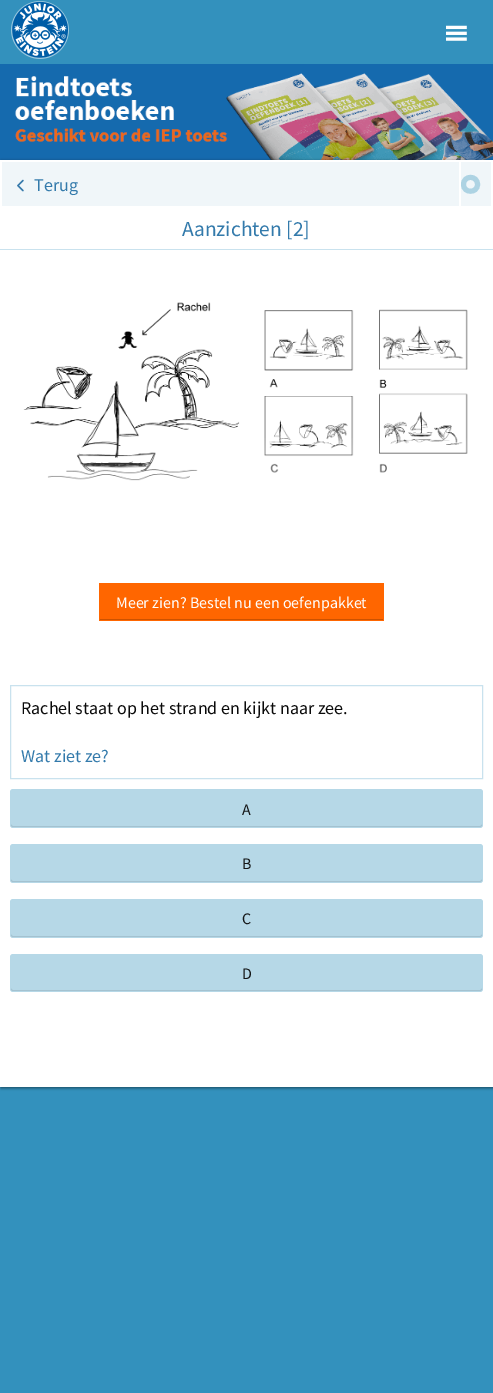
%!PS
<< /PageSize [493 1393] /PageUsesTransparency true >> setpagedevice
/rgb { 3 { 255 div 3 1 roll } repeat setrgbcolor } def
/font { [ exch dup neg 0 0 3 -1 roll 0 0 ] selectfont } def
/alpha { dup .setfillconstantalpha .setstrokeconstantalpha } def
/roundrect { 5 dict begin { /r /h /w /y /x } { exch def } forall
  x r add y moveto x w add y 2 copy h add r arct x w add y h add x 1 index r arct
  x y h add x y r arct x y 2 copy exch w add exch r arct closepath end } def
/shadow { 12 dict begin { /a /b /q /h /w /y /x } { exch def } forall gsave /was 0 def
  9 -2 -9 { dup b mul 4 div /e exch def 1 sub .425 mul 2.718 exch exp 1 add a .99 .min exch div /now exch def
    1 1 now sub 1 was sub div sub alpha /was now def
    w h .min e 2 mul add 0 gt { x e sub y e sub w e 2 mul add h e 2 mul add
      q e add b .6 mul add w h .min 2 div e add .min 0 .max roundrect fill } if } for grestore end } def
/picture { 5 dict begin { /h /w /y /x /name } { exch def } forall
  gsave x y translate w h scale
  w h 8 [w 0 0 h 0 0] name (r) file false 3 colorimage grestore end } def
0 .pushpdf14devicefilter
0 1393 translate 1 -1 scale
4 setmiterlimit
51 145 189 rgb
0 0 493 1393 rectfill
(img/1.rgb) 11 1 58 58 picture
(img/2.rgb) 446 25 21 16 picture
(img/3.rgb) 0 64 493 96 picture
0 0 0 rgb
1 161 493 927 0 1.5 0.5 shadow
[
  [0 160 493 927 255 255 255]
  [0 249 493 1 201 226 238]
  [2 162 457 44 240 246 249]
] { aload pop rgb rectfill } forall
(img/4.rgb) 17 179 7 13 picture
461 162 30 44 rectfill
173 211 227 rgb
5 setlinewidth
463.5 184.5 moveto 463.5 175 477.5 175 477.5 184.5 curveto 477.5 193.5 463.5 193.5 463.5 184.5 curveto closepath stroke
(img/5.rgb) 23 302 445 179 picture
(img/6.rgb) 48 438 419 43 picture
255 102 0 rgb
99 583 285 38 rectfill
204 82 0 rgb
100 619 283 1 rectfill
201 226 238 rgb
1 setlinewidth
10.5 685.5 472 93 rectstroke
182 216 231 rgb
10 789 473 39 3 roundrect fill
164 194 208 rgb
11 824 moveto 11 825 11 827 13 827 curveto 480 827 lineto 482 826 lineto 482 824 lineto 482 825 481 826 480 826 curveto 13 826 lineto 12 826 11 825 11 824 curveto closepath fill
182 216 231 rgb
10 844 473 39 3 roundrect fill
164 194 208 rgb
11 879 moveto 11 880 11 882 13 882 curveto 480 882 lineto 482 881 lineto 482 879 lineto 482 880 481 881 480 881 curveto 13 881 lineto 12 881 11 880 11 879 curveto closepath fill
182 216 231 rgb
10 899 473 39 3 roundrect fill
164 194 208 rgb
11 934 moveto 11 935 11 937 13 937 curveto 480 937 lineto 482 936 lineto 482 934 lineto 482 935 481 936 480 936 curveto 13 936 lineto 12 936 11 935 11 934 curveto closepath fill
182 216 231 rgb
10 954 473 38 3 roundrect fill
164 194 208 rgb
11 988 moveto 11 989 11 991 13 991 curveto 480 991 lineto 482 990 lineto 482 988 lineto 482 989 481 990 480 990 curveto 13 990 lineto 12 990 11 989 11 988 curveto closepath fill
/SourceSansPro-Regular 18 font
51 122 171 rgb
34 191 moveto (Terug) show
/SourceSansPro-Regular 21.5 font
182 236 moveto (Aanzichten [2]) show
/SourceSansPro-Regular 16 font
254 254 254 rgb
116 608 moveto (Meer zien? Bestel nu een oefenpakket) show
/SourceSansPro-Regular 18 font
10 10 10 rgb
21 714 moveto (Rachel staat op het strand en kijkt naar zee.) show
51 122 171 rgb
21 762 moveto (Wat ziet ze?) show
/SourceSansPro-Regular 16 font
20 22 23 rgb
[
  [(A) 242 815]
  [(B) 242 869]
  [(C) 242 924]
  [(D) 242 979]
] { aload pop moveto show } forall
.poppdf14devicefilter showpage
